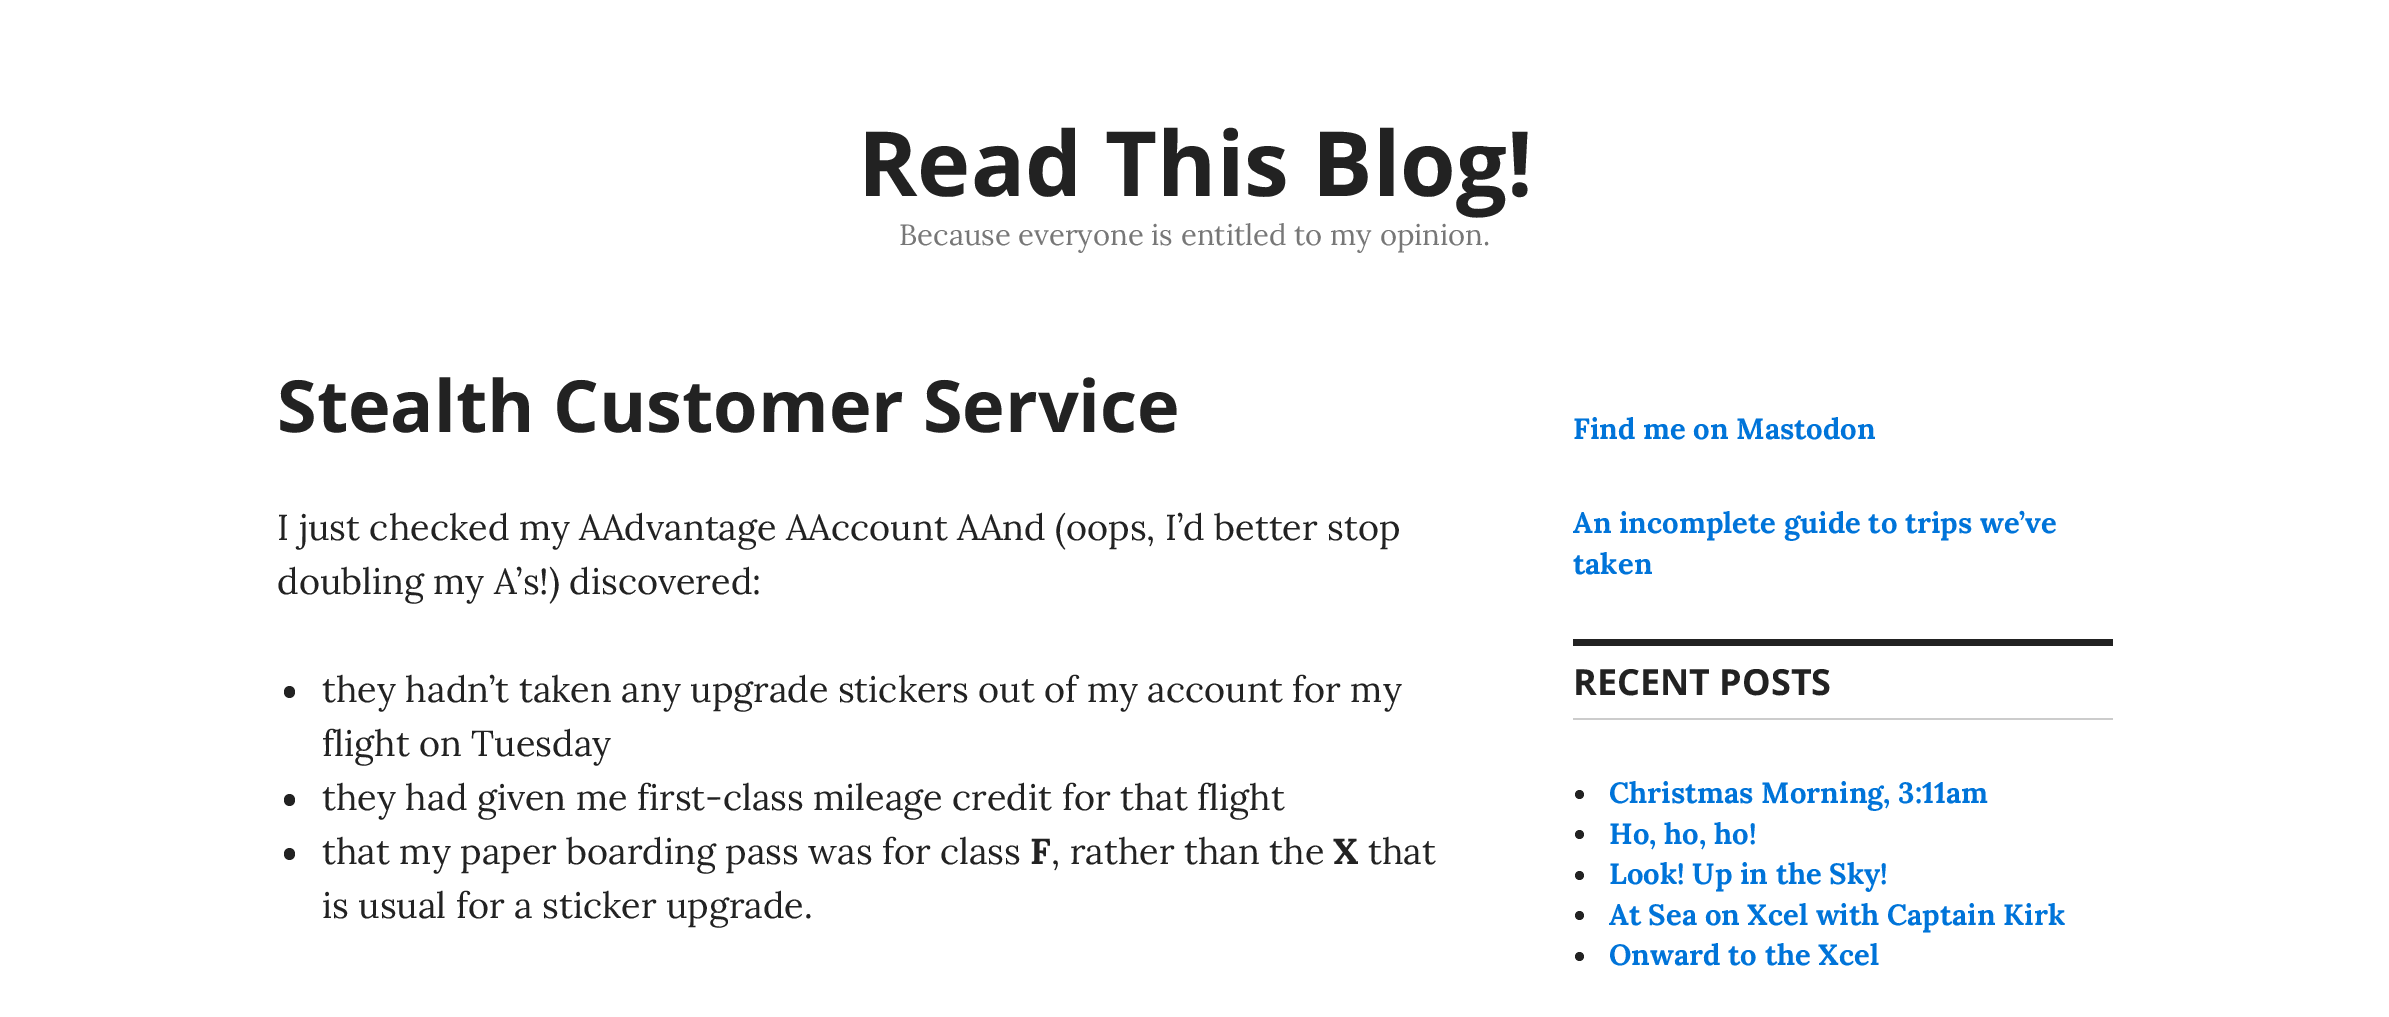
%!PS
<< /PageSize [2389 1017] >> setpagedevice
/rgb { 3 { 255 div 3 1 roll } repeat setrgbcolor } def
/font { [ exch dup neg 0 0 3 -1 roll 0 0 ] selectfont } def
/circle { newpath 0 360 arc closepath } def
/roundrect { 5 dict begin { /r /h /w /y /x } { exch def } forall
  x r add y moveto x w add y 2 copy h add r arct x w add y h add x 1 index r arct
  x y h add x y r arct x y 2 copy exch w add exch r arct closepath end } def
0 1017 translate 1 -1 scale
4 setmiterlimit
255 255 255 rgb
0 0 2389 1017 rectfill
34 34 34 rgb
284 686 11 12 5.5 roundrect fill
284 794 11 12 5.5 roundrect fill
284 848 11 12 5.5 roundrect fill
1573 639 540 7 rectfill
204 204 204 rgb
1573 718 540 2 rectfill
34 34 34 rgb
1579.5 794.5 4.5 circle fill
1579.5 834.5 4.5 circle fill
1579.5 875.5 4.5 circle fill
1579.5 915.5 4.5 circle fill
1579.5 956.5 4.5 circle fill
/OpenSans-Bold 90 font
858 196 moveto (Read This Blog!) show
/Lora-Regular 29.25 font
119 119 119 rgb
899 245 moveto (Because everyone is entitled to my opinion.) show
/OpenSans-Bold 72 font
34 34 34 rgb
277 432 moveto (Stealth Customer Service) show
/Lora-Regular 36 font
[
  [(I just checked my AAdvantage AAccount AAnd \(oops, I’d better stop) 277 540]
  [(doubling my A’s!\) discovered:) 277 594]
  [(they hadn’t taken any upgrade stickers out of my account for my) 322 702]
  [(flight on Tuesday) 322 756]
  [(they had given me first-class mileage credit for that flight) 322 810]
  [(that my paper boarding pass was for class) 322 864]
] { aload pop moveto show } forall
/Lora-Bold 36 font
1030 864 moveto (F) show
/Lora-Regular 36 font
1051 864 moveto (, rather than the) show
/Lora-Bold 36 font
1333 864 moveto (X) show
/Lora-Regular 36 font
1368 864 moveto (that) show
322 918 moveto (is usual for a sticker upgrade.) show
/Lora-Bold 29.25 font
0 116 217 rgb
[
  [(Find me on Mastodon) 1573 439]
  [(An incomplete guide to trips we’ve) 1573 533]
  [(taken) 1573 574]
] { aload pop moveto show } forall
/OpenSans-Bold 36 font
34 34 34 rgb
1573 695 moveto (RECENT POSTS) show
/Lora-Bold 29.25 font
0 116 217 rgb
[
  [(Christmas Morning, 3:11am) 1609 803]
  [(Ho, ho, ho!) 1609 844]
  [(Look! Up in the Sky!) 1609 884]
  [(At Sea on Xcel with Captain Kirk) 1609 925]
  [(Onward to the Xcel) 1609 965]
] { aload pop moveto show } forall
showpage
